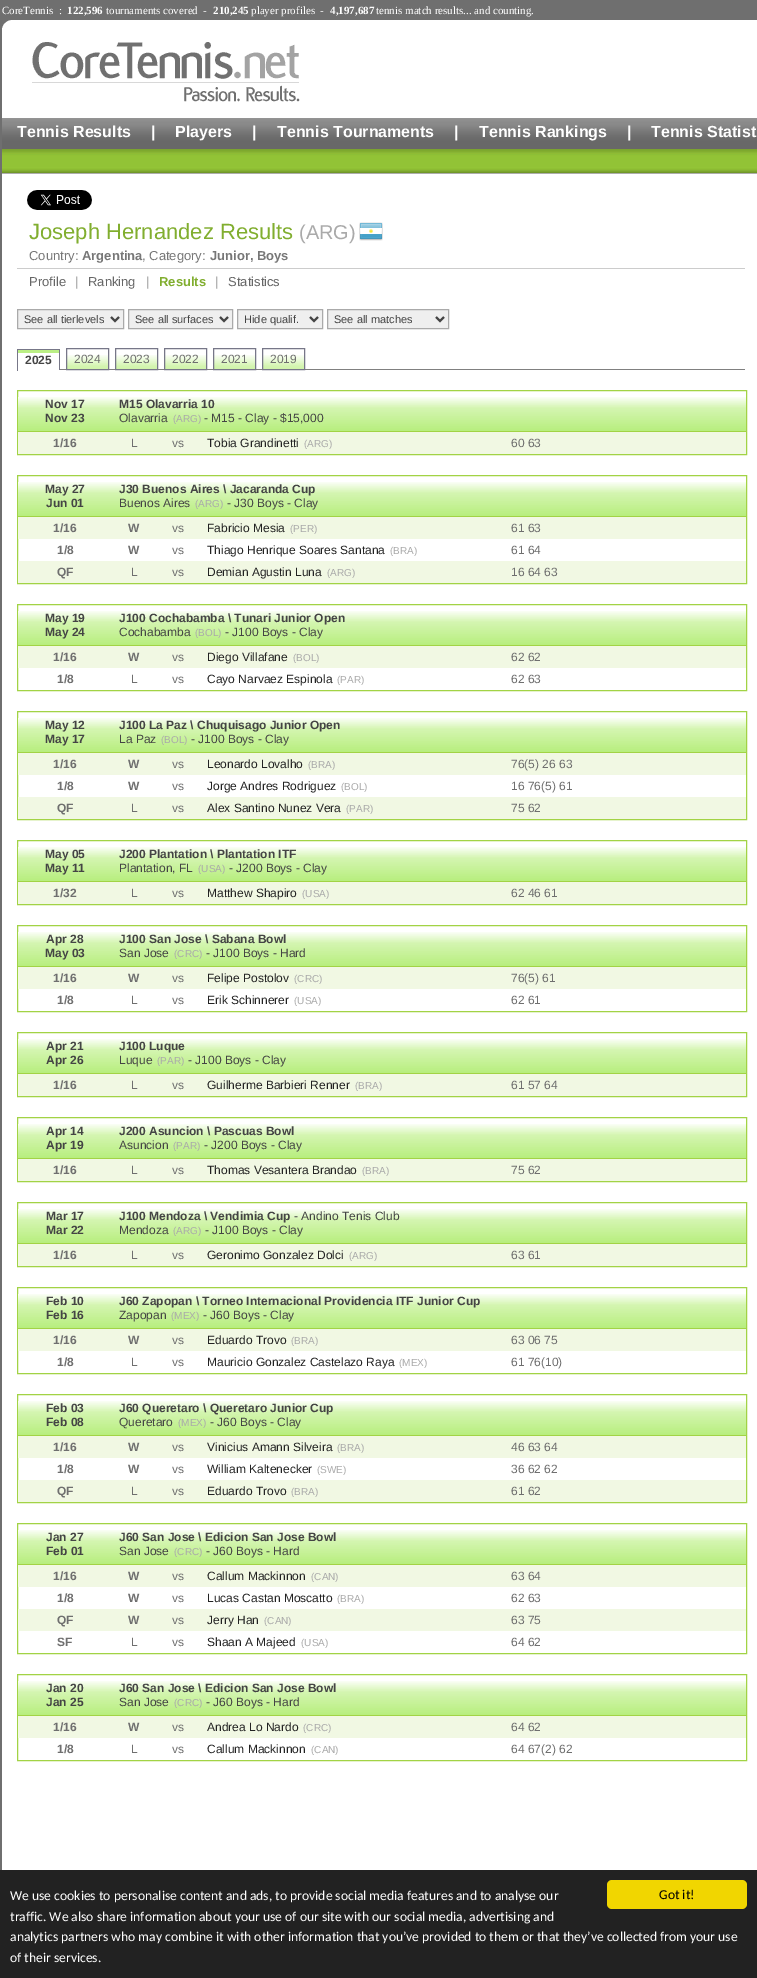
%!PS
<< /PageSize [757 1978] >> setpagedevice
/rgb { 3 { 255 div 3 1 roll } repeat setrgbcolor } def
/font { [ exch dup neg 0 0 3 -1 roll 0 0 ] selectfont } def
/roundrect { 5 dict begin { /r /h /w /y /x } { exch def } forall
  x r add y moveto x w add y 2 copy h add r arct x w add y h add x 1 index r arct
  x y h add x y r arct x y 2 copy exch w add exch r arct closepath end } def
/picture { 5 dict begin { /h /w /y /x /name } { exch def } forall
  gsave x y translate w h scale
  w h 8 [w 0 0 h 0 0] name (r) file false 3 colorimage grestore end } def
0 1978 translate 1 -1 scale
4 setmiterlimit
111 111 111 rgb
0 0 757 1978 rectfill
255 255 255 rgb
2 20 755 1850 rectfill
(img/1.rgb) 2 20 9 8 picture
(img/2.rgb) 32 42 268 60 picture
(img/3.rgb) 2 118 755 31 picture
(img/4.rgb) 2 149 755 25 picture
(img/5.rgb) 27 190 65 20 picture
(img/6.rgb) 359 222 24 19 picture
204 204 204 rgb
17 268 728 1 rectfill
239 239 239 rgb
17.5 309.5 moveto 123.5 309.5 lineto 123.5 328.5 lineto 17.5 328.5 lineto closepath gsave fill grestore
170 170 170 rgb
stroke
68 68 68 rgb
2 setlinewidth
111 317 moveto 115 321 lineto 119 317 lineto stroke
239 239 239 rgb
128.5 309.5 moveto 232.5 309.5 lineto 232.5 328.5 lineto 128.5 328.5 lineto closepath gsave fill grestore
170 170 170 rgb
1 setlinewidth
stroke
68 68 68 rgb
2 setlinewidth
220 317 moveto 224 321 lineto 228 317 lineto stroke
239 239 239 rgb
237.5 309.5 moveto 322.5 309.5 lineto 322.5 328.5 lineto 237.5 328.5 lineto closepath gsave fill grestore
170 170 170 rgb
1 setlinewidth
stroke
68 68 68 rgb
2 setlinewidth
310 317 moveto 314 321 lineto 318 317 lineto stroke
239 239 239 rgb
327.5 309.5 moveto 448.5 309.5 lineto 448.5 328.5 lineto 327.5 328.5 lineto closepath gsave fill grestore
170 170 170 rgb
1 setlinewidth
stroke
68 68 68 rgb
2 setlinewidth
436 317 moveto 440 321 lineto 444 317 lineto stroke
[
  [17 350 43 3 187 239 133]
  [17 349 43 1 119 119 136]
  [59 349 1 22 119 119 136]
  [59 370 1 1 255 255 255]
  [17 349 1 22 119 119 136]
] { aload pop rgb rectfill } forall
(img/7.rgb) 67 355 41 14 picture
128 128 128 rgb
60 369 685 1 rectfill
119 119 136 rgb
1 setlinewidth
66.5 348.5 42 21 rectstroke
(img/7.rgb) 116 355 41 14 picture
115.5 348.5 42 21 rectstroke
(img/7.rgb) 165 355 41 14 picture
164.5 348.5 42 21 rectstroke
(img/7.rgb) 214 355 41 14 picture
213.5 348.5 42 21 rectstroke
(img/7.rgb) 263 355 41 14 picture
262.5 348.5 42 21 rectstroke
162 211 69 rgb
17.5 390.5 729 64 rectstroke
(img/8.rgb) 18 397 728 34 picture
18 431 728 1 rectfill
241 248 227 rgb
18 432 728 22 rectfill
162 211 69 rgb
17.5 475.5 729 108 rectstroke
(img/8.rgb) 18 482 728 34 picture
[
  [18 516 728 1 162 211 69]
  [18 517 728 22 241 248 227]
  [18 561 728 22 241 248 227]
] { aload pop rgb rectfill } forall
162 211 69 rgb
17.5 604.5 729 86 rectstroke
(img/8.rgb) 18 611 728 34 picture
18 645 728 1 rectfill
241 248 227 rgb
18 646 728 22 rectfill
162 211 69 rgb
17.5 711.5 729 108 rectstroke
(img/8.rgb) 18 718 728 34 picture
[
  [18 752 728 1 162 211 69]
  [18 753 728 22 241 248 227]
  [18 797 728 22 241 248 227]
] { aload pop rgb rectfill } forall
162 211 69 rgb
17.5 840.5 729 64 rectstroke
(img/8.rgb) 18 847 728 34 picture
18 881 728 1 rectfill
241 248 227 rgb
18 882 728 22 rectfill
162 211 69 rgb
17.5 925.5 729 86 rectstroke
(img/8.rgb) 18 932 728 34 picture
18 966 728 1 rectfill
241 248 227 rgb
18 967 728 22 rectfill
162 211 69 rgb
17.5 1032.5 729 64 rectstroke
(img/8.rgb) 18 1039 728 34 picture
18 1073 728 1 rectfill
241 248 227 rgb
18 1074 728 22 rectfill
162 211 69 rgb
17.5 1117.5 729 64 rectstroke
(img/8.rgb) 18 1124 728 34 picture
18 1158 728 1 rectfill
241 248 227 rgb
18 1159 728 22 rectfill
162 211 69 rgb
17.5 1202.5 729 64 rectstroke
(img/8.rgb) 18 1209 728 34 picture
18 1243 728 1 rectfill
241 248 227 rgb
18 1244 728 22 rectfill
162 211 69 rgb
17.5 1287.5 729 86 rectstroke
(img/8.rgb) 18 1294 728 34 picture
18 1328 728 1 rectfill
241 248 227 rgb
18 1329 728 22 rectfill
162 211 69 rgb
17.5 1394.5 729 108 rectstroke
(img/8.rgb) 18 1401 728 34 picture
[
  [18 1435 728 1 162 211 69]
  [18 1436 728 22 241 248 227]
  [18 1480 728 22 241 248 227]
] { aload pop rgb rectfill } forall
162 211 69 rgb
17.5 1523.5 729 130 rectstroke
(img/8.rgb) 18 1530 728 34 picture
[
  [18 1564 728 1 162 211 69]
  [18 1565 728 22 241 248 227]
  [18 1609 728 22 241 248 227]
] { aload pop rgb rectfill } forall
162 211 69 rgb
17.5 1674.5 729 86 rectstroke
(img/8.rgb) 18 1681 728 34 picture
[
  [18 1715 728 1 162 211 69]
  [18 1716 728 22 241 248 227]
  [0 1870 757 108 34 34 34]
] { aload pop rgb rectfill } forall
241 214 0 rgb
607 1880 140 29 5 roundrect fill
/LiberationSerif-Regular 11 font
255 255 255 rgb
2 14 moveto (CoreTennis  :) show
/LiberationSerif-Bold 11 font
67 14 moveto (122,596) show
/LiberationSerif-Regular 11 font
106 14 moveto (tournaments covered  -) show
/LiberationSerif-Bold 11 font
213 14 moveto (210,245) show
/LiberationSerif-Regular 11 font
251 14 moveto (player profiles) show
320 14 moveto (-) show
/LiberationSerif-Bold 11 font
330 14 moveto (4,197,687) show
/LiberationSerif-Regular 11 font
376 14 moveto (tennis match results... and counting.) show
/LiberationSans-Bold 16 font
[
  [(Tennis Results) 17 137]
  [(|) 151 137]
  [(Players) 175 137]
  [(|) 252 137]
  [(Tennis Tournaments) 277 137]
  [(|) 454 137]
  [(Tennis Rankings) 479 137]
  [(|) 627 137]
  [(Tennis Statist) 651 137]
] { aload pop moveto show } forall
/LiberationSans-Regular 22 font
129 174 47 rgb
29 239 moveto (Joseph Hernandez Results) show
/LiberationSans-Regular 20 font
170 170 170 rgb
299 239 moveto (\(ARG\)) show
/LiberationSans-Regular 13 font
119 119 119 rgb
29 260 moveto (Country:) show
/LiberationSans-Bold 13 font
82 260 moveto (Argentina) show
/LiberationSans-Regular 13 font
142 260 moveto (, Category:) show
/LiberationSans-Bold 13 font
210 260 moveto (Junior, Boys) show
/LiberationSans-Regular 13 font
102 102 102 rgb
29 286 moveto (Profile) show
153 153 153 rgb
75 286 moveto (|) show
102 102 102 rgb
88 286 moveto (Ranking) show
153 153 153 rgb
146 286 moveto (|) show
/LiberationSans-Bold 13 font
129 174 47 rgb
159 286 moveto (Results) show
/LiberationSans-Regular 13 font
153 153 153 rgb
215 286 moveto (|) show
102 102 102 rgb
228 286 moveto (Statistics) show
/LiberationSans-Regular 11 font
68 68 68 rgb
[
  [(See all tierlevels) 24 323]
  [(See all surfaces) 135 323]
  [(Hide qualif.) 244 323]
  [(See all matches) 334 323]
] { aload pop moveto show } forall
/LiberationSans-Bold 12 font
25 364 moveto (2025) show
/LiberationSans-Regular 12 font
111 111 111 rgb
[
  [(2024) 74 363]
  [(2023) 123 363]
  [(2022) 172 363]
  [(2021) 221 363]
  [(2019) 270 363]
] { aload pop moveto show } forall
/LiberationSans-Bold 12 font
68 68 68 rgb
[
  [(Nov 17) 45 408]
  [(Nov 23) 45 422]
  [(M15 Olavarria 10) 119 408]
] { aload pop moveto show } forall
/LiberationSans-Regular 12 font
119 422 moveto (Olavarria) show
/LiberationSans-Regular 10 font
170 170 170 rgb
173 422 moveto (\(ARG\)) show
/LiberationSans-Regular 12 font
68 68 68 rgb
204 422 moveto (- M15 - Clay - $15,000) show
/LiberationSans-Bold 12 font
111 111 111 rgb
53 447 moveto (1/16) show
/LiberationSans-Regular 12 font
131 447 moveto (L) show
172 447 moveto (vs) show
34 34 34 rgb
207 447 moveto (Tobia Grandinetti) show
/LiberationSans-Regular 10 font
170 170 170 rgb
304 447 moveto (\(ARG\)) show
/LiberationSans-Regular 12 font
111 111 111 rgb
511 447 moveto (60 63) show
/LiberationSans-Bold 12 font
68 68 68 rgb
[
  [(May 27) 45 493]
  [(Jun 01) 46 507]
  [(J30 Buenos Aires \\ Jacaranda Cup) 119 493]
] { aload pop moveto show } forall
/LiberationSans-Regular 12 font
119 507 moveto (Buenos Aires) show
/LiberationSans-Regular 10 font
170 170 170 rgb
195 507 moveto (\(ARG\)) show
/LiberationSans-Regular 12 font
68 68 68 rgb
227 507 moveto (- J30 Boys - Clay) show
/LiberationSans-Bold 12 font
111 111 111 rgb
53 532 moveto (1/16) show
128 532 moveto (W) show
/LiberationSans-Regular 12 font
172 532 moveto (vs) show
34 34 34 rgb
207 532 moveto (Fabricio Mesia) show
/LiberationSans-Regular 10 font
170 170 170 rgb
290 532 moveto (\(PER\)) show
/LiberationSans-Regular 12 font
111 111 111 rgb
511 532 moveto (61 63) show
/LiberationSans-Bold 12 font
57 554 moveto (1/8) show
128 554 moveto (W) show
/LiberationSans-Regular 12 font
172 554 moveto (vs) show
34 34 34 rgb
207 554 moveto (Thiago Henrique Soares Santana) show
/LiberationSans-Regular 10 font
170 170 170 rgb
390 554 moveto (\(BRA\)) show
/LiberationSans-Regular 12 font
111 111 111 rgb
511 554 moveto (61 64) show
/LiberationSans-Bold 12 font
57 576 moveto (QF) show
/LiberationSans-Regular 12 font
131 576 moveto (L) show
172 576 moveto (vs) show
34 34 34 rgb
207 576 moveto (Demian Agustin Luna) show
/LiberationSans-Regular 10 font
170 170 170 rgb
327 576 moveto (\(ARG\)) show
/LiberationSans-Regular 12 font
111 111 111 rgb
511 576 moveto (16 64 63) show
/LiberationSans-Bold 12 font
68 68 68 rgb
[
  [(May 19) 45 622]
  [(May 24) 45 636]
  [(J100 Cochabamba \\ Tunari Junior Open) 119 622]
] { aload pop moveto show } forall
/LiberationSans-Regular 12 font
119 636 moveto (Cochabamba) show
/LiberationSans-Regular 10 font
170 170 170 rgb
195 636 moveto (\(BOL\)) show
/LiberationSans-Regular 12 font
68 68 68 rgb
225 636 moveto (- J100 Boys - Clay) show
/LiberationSans-Bold 12 font
111 111 111 rgb
53 661 moveto (1/16) show
128 661 moveto (W) show
/LiberationSans-Regular 12 font
172 661 moveto (vs) show
34 34 34 rgb
207 661 moveto (Diego Villafane) show
/LiberationSans-Regular 10 font
170 170 170 rgb
293 661 moveto (\(BOL\)) show
/LiberationSans-Regular 12 font
111 111 111 rgb
511 661 moveto (62 62) show
/LiberationSans-Bold 12 font
57 683 moveto (1/8) show
/LiberationSans-Regular 12 font
131 683 moveto (L) show
172 683 moveto (vs) show
34 34 34 rgb
207 683 moveto (Cayo Narvaez Espinola) show
/LiberationSans-Regular 10 font
170 170 170 rgb
337 683 moveto (\(PAR\)) show
/LiberationSans-Regular 12 font
111 111 111 rgb
511 683 moveto (62 63) show
/LiberationSans-Bold 12 font
68 68 68 rgb
[
  [(May 12) 45 729]
  [(May 17) 45 743]
  [(J100 La Paz \\ Chuquisago Junior Open) 119 729]
] { aload pop moveto show } forall
/LiberationSans-Regular 12 font
119 743 moveto (La Paz) show
/LiberationSans-Regular 10 font
170 170 170 rgb
161 743 moveto (\(BOL\)) show
/LiberationSans-Regular 12 font
68 68 68 rgb
191 743 moveto (- J100 Boys - Clay) show
/LiberationSans-Bold 12 font
111 111 111 rgb
53 768 moveto (1/16) show
128 768 moveto (W) show
/LiberationSans-Regular 12 font
172 768 moveto (vs) show
34 34 34 rgb
207 768 moveto (Leonardo Lovalho) show
/LiberationSans-Regular 10 font
170 170 170 rgb
308 768 moveto (\(BRA\)) show
/LiberationSans-Regular 12 font
111 111 111 rgb
511 768 moveto (76\(5\) 26 63) show
/LiberationSans-Bold 12 font
57 790 moveto (1/8) show
128 790 moveto (W) show
/LiberationSans-Regular 12 font
172 790 moveto (vs) show
34 34 34 rgb
207 790 moveto (Jorge Andres Rodriguez) show
/LiberationSans-Regular 10 font
170 170 170 rgb
341 790 moveto (\(BOL\)) show
/LiberationSans-Regular 12 font
111 111 111 rgb
511 790 moveto (16 76\(5\) 61) show
/LiberationSans-Bold 12 font
57 812 moveto (QF) show
/LiberationSans-Regular 12 font
131 812 moveto (L) show
172 812 moveto (vs) show
34 34 34 rgb
207 812 moveto (Alex Santino Nunez Vera) show
/LiberationSans-Regular 10 font
170 170 170 rgb
346 812 moveto (\(PAR\)) show
/LiberationSans-Regular 12 font
111 111 111 rgb
511 812 moveto (75 62) show
/LiberationSans-Bold 12 font
68 68 68 rgb
[
  [(May 05) 45 858]
  [(May 11) 45 872]
  [(J200 Plantation \\ Plantation ITF) 119 858]
] { aload pop moveto show } forall
/LiberationSans-Regular 12 font
119 872 moveto (Plantation, FL) show
/LiberationSans-Regular 10 font
170 170 170 rgb
198 872 moveto (\(USA\)) show
/LiberationSans-Regular 12 font
68 68 68 rgb
229 872 moveto (- J200 Boys - Clay) show
/LiberationSans-Bold 12 font
111 111 111 rgb
53 897 moveto (1/32) show
/LiberationSans-Regular 12 font
131 897 moveto (L) show
172 897 moveto (vs) show
34 34 34 rgb
207 897 moveto (Matthew Shapiro) show
/LiberationSans-Regular 10 font
170 170 170 rgb
302 897 moveto (\(USA\)) show
/LiberationSans-Regular 12 font
111 111 111 rgb
511 897 moveto (62 46 61) show
/LiberationSans-Bold 12 font
68 68 68 rgb
[
  [(Apr 28) 46 943]
  [(May 03) 45 957]
  [(J100 San Jose \\ Sabana Bowl) 119 943]
] { aload pop moveto show } forall
/LiberationSans-Regular 12 font
119 957 moveto (San Jose) show
/LiberationSans-Regular 10 font
170 170 170 rgb
174 957 moveto (\(CRC\)) show
/LiberationSans-Regular 12 font
68 68 68 rgb
206 957 moveto (- J100 Boys - Hard) show
/LiberationSans-Bold 12 font
111 111 111 rgb
53 982 moveto (1/16) show
128 982 moveto (W) show
/LiberationSans-Regular 12 font
172 982 moveto (vs) show
34 34 34 rgb
207 982 moveto (Felipe Postolov) show
/LiberationSans-Regular 10 font
170 170 170 rgb
294 982 moveto (\(CRC\)) show
/LiberationSans-Regular 12 font
111 111 111 rgb
511 982 moveto (76\(5\) 61) show
/LiberationSans-Bold 12 font
57 1004 moveto (1/8) show
/LiberationSans-Regular 12 font
131 1004 moveto (L) show
172 1004 moveto (vs) show
34 34 34 rgb
207 1004 moveto (Erik Schinnerer) show
/LiberationSans-Regular 10 font
170 170 170 rgb
294 1004 moveto (\(USA\)) show
/LiberationSans-Regular 12 font
111 111 111 rgb
511 1004 moveto (62 61) show
/LiberationSans-Bold 12 font
68 68 68 rgb
[
  [(Apr 21) 46 1050]
  [(Apr 26) 46 1064]
  [(J100 Luque) 119 1050]
] { aload pop moveto show } forall
/LiberationSans-Regular 12 font
119 1064 moveto (Luque) show
/LiberationSans-Regular 10 font
170 170 170 rgb
157 1064 moveto (\(PAR\)) show
/LiberationSans-Regular 12 font
68 68 68 rgb
188 1064 moveto (- J100 Boys - Clay) show
/LiberationSans-Bold 12 font
111 111 111 rgb
53 1089 moveto (1/16) show
/LiberationSans-Regular 12 font
131 1089 moveto (L) show
172 1089 moveto (vs) show
34 34 34 rgb
207 1089 moveto (Guilherme Barbieri Renner) show
/LiberationSans-Regular 10 font
170 170 170 rgb
355 1089 moveto (\(BRA\)) show
/LiberationSans-Regular 12 font
111 111 111 rgb
511 1089 moveto (61 57 64) show
/LiberationSans-Bold 12 font
68 68 68 rgb
[
  [(Apr 14) 46 1135]
  [(Apr 19) 46 1149]
  [(J200 Asuncion \\ Pascuas Bowl) 119 1135]
] { aload pop moveto show } forall
/LiberationSans-Regular 12 font
119 1149 moveto (Asuncion) show
/LiberationSans-Regular 10 font
170 170 170 rgb
173 1149 moveto (\(PAR\)) show
/LiberationSans-Regular 12 font
68 68 68 rgb
204 1149 moveto (- J200 Boys - Clay) show
/LiberationSans-Bold 12 font
111 111 111 rgb
53 1174 moveto (1/16) show
/LiberationSans-Regular 12 font
131 1174 moveto (L) show
172 1174 moveto (vs) show
34 34 34 rgb
207 1174 moveto (Thomas Vesantera Brandao) show
/LiberationSans-Regular 10 font
170 170 170 rgb
362 1174 moveto (\(BRA\)) show
/LiberationSans-Regular 12 font
111 111 111 rgb
511 1174 moveto (75 62) show
/LiberationSans-Bold 12 font
68 68 68 rgb
[
  [(Mar 17) 46 1220]
  [(Mar 22) 46 1234]
  [(J100 Mendoza \\ Vendimia Cup) 119 1220]
] { aload pop moveto show } forall
/LiberationSans-Regular 12 font
294 1220 moveto (- Andino Tenis Club) show
119 1234 moveto (Mendoza) show
/LiberationSans-Regular 10 font
170 170 170 rgb
173 1234 moveto (\(ARG\)) show
/LiberationSans-Regular 12 font
68 68 68 rgb
205 1234 moveto (- J100 Boys - Clay) show
/LiberationSans-Bold 12 font
111 111 111 rgb
53 1259 moveto (1/16) show
/LiberationSans-Regular 12 font
131 1259 moveto (L) show
172 1259 moveto (vs) show
34 34 34 rgb
207 1259 moveto (Geronimo Gonzalez Dolci) show
/LiberationSans-Regular 10 font
170 170 170 rgb
349 1259 moveto (\(ARG\)) show
/LiberationSans-Regular 12 font
111 111 111 rgb
511 1259 moveto (63 61) show
/LiberationSans-Bold 12 font
68 68 68 rgb
[
  [(Feb 10) 46 1305]
  [(Feb 16) 46 1319]
  [(J60 Zapopan \\ Torneo Internacional Providencia ITF Junior Cup) 119 1305]
] { aload pop moveto show } forall
/LiberationSans-Regular 12 font
119 1319 moveto (Zapopan) show
/LiberationSans-Regular 10 font
170 170 170 rgb
171 1319 moveto (\(MEX\)) show
/LiberationSans-Regular 12 font
68 68 68 rgb
203 1319 moveto (- J60 Boys - Clay) show
/LiberationSans-Bold 12 font
111 111 111 rgb
53 1344 moveto (1/16) show
128 1344 moveto (W) show
/LiberationSans-Regular 12 font
172 1344 moveto (vs) show
34 34 34 rgb
207 1344 moveto (Eduardo Trovo) show
/LiberationSans-Regular 10 font
170 170 170 rgb
291 1344 moveto (\(BRA\)) show
/LiberationSans-Regular 12 font
111 111 111 rgb
511 1344 moveto (63 06 75) show
/LiberationSans-Bold 12 font
57 1366 moveto (1/8) show
/LiberationSans-Regular 12 font
131 1366 moveto (L) show
172 1366 moveto (vs) show
34 34 34 rgb
207 1366 moveto (Mauricio Gonzalez Castelazo Raya) show
/LiberationSans-Regular 10 font
170 170 170 rgb
399 1366 moveto (\(MEX\)) show
/LiberationSans-Regular 12 font
111 111 111 rgb
511 1366 moveto (61 76\(10\)) show
/LiberationSans-Bold 12 font
68 68 68 rgb
[
  [(Feb 03) 46 1412]
  [(Feb 08) 46 1426]
  [(J60 Queretaro \\ Queretaro Junior Cup) 119 1412]
] { aload pop moveto show } forall
/LiberationSans-Regular 12 font
119 1426 moveto (Queretaro) show
/LiberationSans-Regular 10 font
170 170 170 rgb
178 1426 moveto (\(MEX\)) show
/LiberationSans-Regular 12 font
68 68 68 rgb
210 1426 moveto (- J60 Boys - Clay) show
/LiberationSans-Bold 12 font
111 111 111 rgb
53 1451 moveto (1/16) show
128 1451 moveto (W) show
/LiberationSans-Regular 12 font
172 1451 moveto (vs) show
34 34 34 rgb
207 1451 moveto (Vinicius Amann Silveira) show
/LiberationSans-Regular 10 font
170 170 170 rgb
337 1451 moveto (\(BRA\)) show
/LiberationSans-Regular 12 font
111 111 111 rgb
511 1451 moveto (46 63 64) show
/LiberationSans-Bold 12 font
57 1473 moveto (1/8) show
128 1473 moveto (W) show
/LiberationSans-Regular 12 font
172 1473 moveto (vs) show
34 34 34 rgb
207 1473 moveto (William Kaltenecker) show
/LiberationSans-Regular 10 font
170 170 170 rgb
317 1473 moveto (\(SWE\)) show
/LiberationSans-Regular 12 font
111 111 111 rgb
511 1473 moveto (36 62 62) show
/LiberationSans-Bold 12 font
57 1495 moveto (QF) show
/LiberationSans-Regular 12 font
131 1495 moveto (L) show
172 1495 moveto (vs) show
34 34 34 rgb
207 1495 moveto (Eduardo Trovo) show
/LiberationSans-Regular 10 font
170 170 170 rgb
291 1495 moveto (\(BRA\)) show
/LiberationSans-Regular 12 font
111 111 111 rgb
511 1495 moveto (61 62) show
/LiberationSans-Bold 12 font
68 68 68 rgb
[
  [(Jan 27) 46 1541]
  [(Feb 01) 46 1555]
  [(J60 San Jose \\ Edicion San Jose Bowl) 119 1541]
] { aload pop moveto show } forall
/LiberationSans-Regular 12 font
119 1555 moveto (San Jose) show
/LiberationSans-Regular 10 font
170 170 170 rgb
174 1555 moveto (\(CRC\)) show
/LiberationSans-Regular 12 font
68 68 68 rgb
206 1555 moveto (- J60 Boys - Hard) show
/LiberationSans-Bold 12 font
111 111 111 rgb
53 1580 moveto (1/16) show
128 1580 moveto (W) show
/LiberationSans-Regular 12 font
172 1580 moveto (vs) show
34 34 34 rgb
207 1580 moveto (Callum Mackinnon) show
/LiberationSans-Regular 10 font
170 170 170 rgb
311 1580 moveto (\(CAN\)) show
/LiberationSans-Regular 12 font
111 111 111 rgb
511 1580 moveto (63 64) show
/LiberationSans-Bold 12 font
57 1602 moveto (1/8) show
128 1602 moveto (W) show
/LiberationSans-Regular 12 font
172 1602 moveto (vs) show
34 34 34 rgb
207 1602 moveto (Lucas Castan Moscatto) show
/LiberationSans-Regular 10 font
170 170 170 rgb
337 1602 moveto (\(BRA\)) show
/LiberationSans-Regular 12 font
111 111 111 rgb
511 1602 moveto (62 63) show
/LiberationSans-Bold 12 font
57 1624 moveto (QF) show
128 1624 moveto (W) show
/LiberationSans-Regular 12 font
172 1624 moveto (vs) show
34 34 34 rgb
207 1624 moveto (Jerry Han) show
/LiberationSans-Regular 10 font
170 170 170 rgb
264 1624 moveto (\(CAN\)) show
/LiberationSans-Regular 12 font
111 111 111 rgb
511 1624 moveto (63 75) show
/LiberationSans-Bold 12 font
57 1646 moveto (SF) show
/LiberationSans-Regular 12 font
131 1646 moveto (L) show
172 1646 moveto (vs) show
34 34 34 rgb
207 1646 moveto (Shaan A Majeed) show
/LiberationSans-Regular 10 font
170 170 170 rgb
301 1646 moveto (\(USA\)) show
/LiberationSans-Regular 12 font
111 111 111 rgb
511 1646 moveto (64 62) show
/LiberationSans-Bold 12 font
68 68 68 rgb
[
  [(Jan 20) 46 1692]
  [(Jan 25) 46 1706]
  [(J60 San Jose \\ Edicion San Jose Bowl) 119 1692]
] { aload pop moveto show } forall
/LiberationSans-Regular 12 font
119 1706 moveto (San Jose) show
/LiberationSans-Regular 10 font
170 170 170 rgb
174 1706 moveto (\(CRC\)) show
/LiberationSans-Regular 12 font
68 68 68 rgb
206 1706 moveto (- J60 Boys - Hard) show
/LiberationSans-Bold 12 font
111 111 111 rgb
53 1731 moveto (1/16) show
128 1731 moveto (W) show
/LiberationSans-Regular 12 font
172 1731 moveto (vs) show
34 34 34 rgb
207 1731 moveto (Andrea Lo Nardo) show
/LiberationSans-Regular 10 font
170 170 170 rgb
303 1731 moveto (\(CRC\)) show
/LiberationSans-Regular 12 font
111 111 111 rgb
511 1731 moveto (64 62) show
/LiberationSans-Bold 12 font
57 1753 moveto (1/8) show
/LiberationSans-Regular 12 font
131 1753 moveto (L) show
172 1753 moveto (vs) show
34 34 34 rgb
207 1753 moveto (Callum Mackinnon) show
/LiberationSans-Regular 10 font
170 170 170 rgb
311 1753 moveto (\(CAN\)) show
/LiberationSans-Regular 12 font
111 111 111 rgb
511 1753 moveto (64 67\(2\) 62) show
/Carlito-Regular 13.6 font
0 0 0 rgb
659 1899 moveto (Got it!) show
255 255 255 rgb
[
  [(We use cookies to personalise content and ads, to provide social media features and to analyse our) 10 1900]
  [(traffic. We also share information about your use of our site with our social media, advertising and) 10 1921]
  [(analytics partners who may combine it with other information that you’ve provided to them or that they’ve collected from your use) 10 1941]
  [(of their services.) 10 1962]
] { aload pop moveto show } forall
showpage
